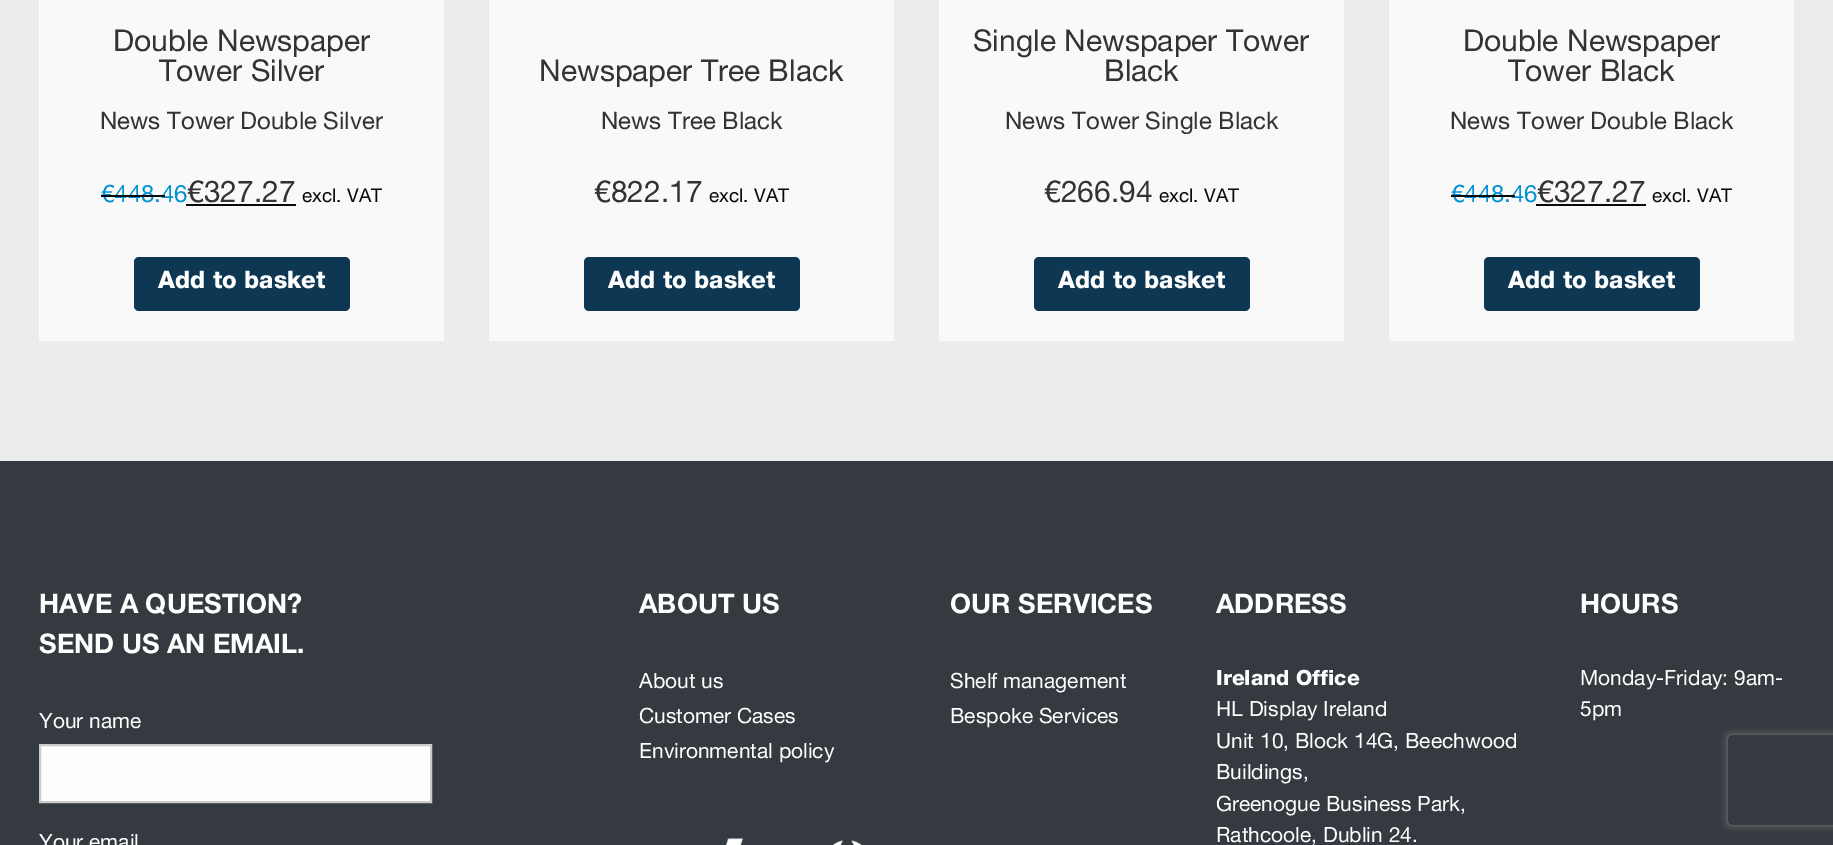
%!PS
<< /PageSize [1833 845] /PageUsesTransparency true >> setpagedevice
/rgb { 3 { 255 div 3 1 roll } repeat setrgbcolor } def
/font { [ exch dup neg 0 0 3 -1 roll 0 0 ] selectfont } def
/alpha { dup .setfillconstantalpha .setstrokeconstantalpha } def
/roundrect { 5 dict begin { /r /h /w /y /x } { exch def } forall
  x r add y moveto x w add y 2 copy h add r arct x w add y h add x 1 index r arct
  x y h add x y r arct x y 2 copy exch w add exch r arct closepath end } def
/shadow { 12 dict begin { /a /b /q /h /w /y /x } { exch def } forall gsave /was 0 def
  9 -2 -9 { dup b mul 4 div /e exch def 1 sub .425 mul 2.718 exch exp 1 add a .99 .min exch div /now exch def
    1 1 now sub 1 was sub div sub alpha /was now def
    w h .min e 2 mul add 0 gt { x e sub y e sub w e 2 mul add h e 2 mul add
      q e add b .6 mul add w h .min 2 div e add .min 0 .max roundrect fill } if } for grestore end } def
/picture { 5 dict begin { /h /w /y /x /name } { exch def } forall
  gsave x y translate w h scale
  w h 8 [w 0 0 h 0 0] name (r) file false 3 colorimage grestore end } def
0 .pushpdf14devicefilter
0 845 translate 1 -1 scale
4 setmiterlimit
236 236 236 rgb
0 0 1833 845 rectfill
249 249 249 rgb
39 0 405 341 rectfill
10 10 10 rgb
186 204 110 2 rectfill
14 55 84 rgb
134 257 216 54 5 roundrect fill
249 249 249 rgb
489 0 405 341 rectfill
14 55 84 rgb
584 257 216 54 5 roundrect fill
249 249 249 rgb
939 0 405 341 rectfill
14 55 84 rgb
1034 257 216 54 5 roundrect fill
249 249 249 rgb
1389 0 405 341 rectfill
10 10 10 rgb
1536 204 110 2 rectfill
14 55 84 rgb
1484 257 216 54 5 roundrect fill
52 58 64 rgb
0 461 1833 384 rectfill
254 254 254 rgb
40 745 moveto 431 745 lineto 431 802 lineto 40 802 lineto closepath gsave fill grestore
202 202 202 rgb
2 setlinewidth
stroke
(img/1.rgb) 726 838 136 7 picture
gsave
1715 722 moveto 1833 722 lineto 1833 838 lineto 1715 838 lineto closepath 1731 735 moveto 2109 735 lineto 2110.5 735 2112 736.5 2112 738 curveto 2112 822 lineto 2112 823.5 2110.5 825 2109 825 curveto 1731 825 lineto 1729.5 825 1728 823.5 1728 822 curveto 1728 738 lineto 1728 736.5 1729.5 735 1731 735 curveto closepath eoclip newpath
128 128 128 rgb
1728 735 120 90 3 4 1 shadow
grestore
/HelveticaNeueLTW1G-Regular 30 font
51 51 51 rgb
113 51 moveto (Double Newspaper) show
159 81 moveto (Tower Silver) show
/HelveticaNeueLTW1G-Regular 24 font
100 129 moveto (News Tower Double Silver) show
0 145 210 rgb
101 202 moveto (€448.46) show
10 10 10 rgb
101 195 64 2 rectfill
/HelveticaNeueLTW1G-Regular 30 font
51 51 51 rgb
187 202 moveto (€327.27) show
/HelveticaNeueLTW1G-Regular 19 font
10 10 10 rgb
302 202 moveto (excl. VAT) show
/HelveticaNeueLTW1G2-Bold 24 font
254 254 254 rgb
158 288 moveto (Add to basket) show
/HelveticaNeueLTW1G-Regular 30 font
51 51 51 rgb
539 81 moveto (Newspaper Tree Black) show
/HelveticaNeueLTW1G-Regular 24 font
601 129 moveto (News Tree Black) show
/HelveticaNeueLTW1G-Regular 30 font
594 202 moveto (€822.17) show
/HelveticaNeueLTW1G-Regular 19 font
10 10 10 rgb
709 202 moveto (excl. VAT) show
/HelveticaNeueLTW1G2-Bold 24 font
254 254 254 rgb
608 288 moveto (Add to basket) show
/HelveticaNeueLTW1G-Regular 30 font
51 51 51 rgb
973 51 moveto (Single Newspaper Tower) show
1104 81 moveto (Black) show
/HelveticaNeueLTW1G-Regular 24 font
1005 129 moveto (News Tower Single Black) show
/HelveticaNeueLTW1G-Regular 30 font
1044 202 moveto (€266.94) show
/HelveticaNeueLTW1G-Regular 19 font
10 10 10 rgb
1159 202 moveto (excl. VAT) show
/HelveticaNeueLTW1G2-Bold 24 font
254 254 254 rgb
1058 288 moveto (Add to basket) show
/HelveticaNeueLTW1G-Regular 30 font
51 51 51 rgb
1463 51 moveto (Double Newspaper) show
1508 81 moveto (Tower Black) show
/HelveticaNeueLTW1G-Regular 24 font
1450 129 moveto (News Tower Double Black) show
0 145 210 rgb
1451 202 moveto (€448.46) show
10 10 10 rgb
1451 195 64 2 rectfill
/HelveticaNeueLTW1G-Regular 30 font
51 51 51 rgb
1537 202 moveto (€327.27) show
/HelveticaNeueLTW1G-Regular 19 font
10 10 10 rgb
1652 202 moveto (excl. VAT) show
/HelveticaNeueLTW1G2-Bold 24 font
254 254 254 rgb
1508 288 moveto (Add to basket) show
/HelveticaNeueLTW1G-Bold 27 font
39 613 moveto (HAVE A QUESTION?) show
39 653 moveto (SEND US AN EMAIL.) show
/HelveticaNeueLTW1G-Regular 21 font
39 728 moveto (Your name) show
39 849 moveto (Your email) show
/HelveticaNeueLTW1G-Bold 27 font
639 613 moveto (ABOUT US) show
/HelveticaNeueLTW1G-Regular 21 font
[
  [(About us) 639 688]
  [(Customer Cases) 639 723]
  [(Environmental policy) 639 758]
] { aload pop moveto show } forall
/HelveticaNeueLTW1G-Bold 27 font
950 613 moveto (OUR SERVICES) show
/HelveticaNeueLTW1G-Regular 21 font
950 688 moveto (Shelf management) show
950 723 moveto (Bespoke Services) show
/HelveticaNeueLTW1G-Bold 27 font
1216 613 moveto (ADDRESS) show
/HelveticaNeueLTW1G2-Bold 21 font
1216 685 moveto (Ireland Office) show
/HelveticaNeueLTW1G-Regular 21 font
[
  [(HL Display Ireland) 1216 716]
  [(Unit 10, Block 14G, Beechwood) 1216 748]
  [(Buildings,) 1216 779]
  [(Greenogue Business Park,) 1216 811]
  [(Rathcoole, Dublin 24.) 1216 842]
] { aload pop moveto show } forall
/HelveticaNeueLTW1G-Bold 27 font
1580 613 moveto (HOURS) show
/HelveticaNeueLTW1G-Regular 21 font
1580 685 moveto (Monday-Friday: 9am-) show
1580 716 moveto (5pm) show
.poppdf14devicefilter showpage
